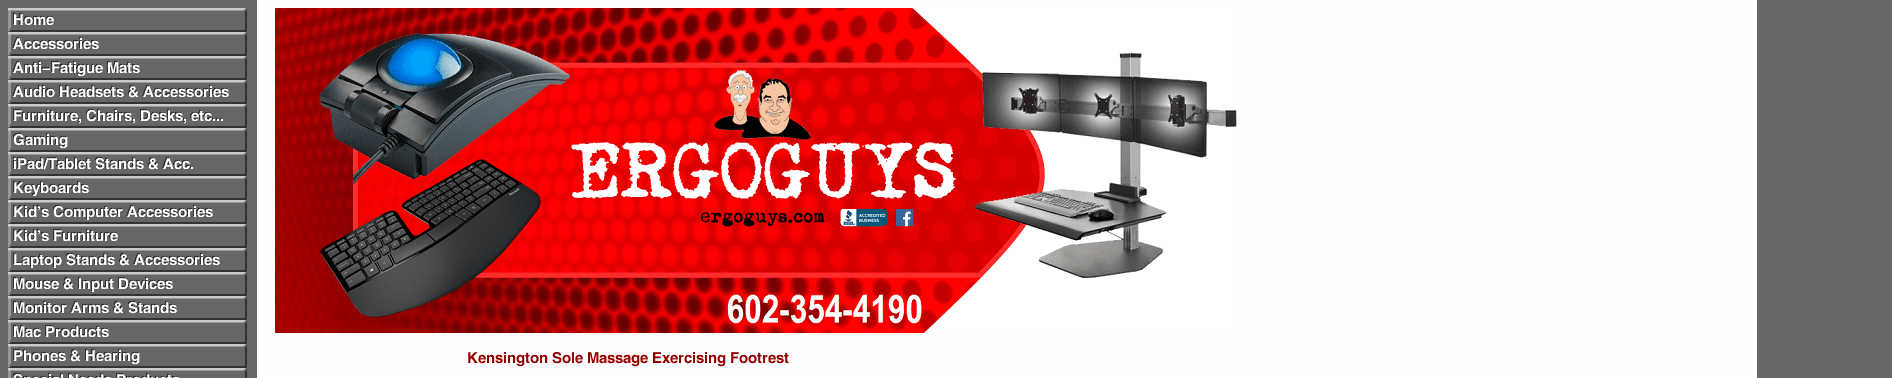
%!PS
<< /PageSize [1892 378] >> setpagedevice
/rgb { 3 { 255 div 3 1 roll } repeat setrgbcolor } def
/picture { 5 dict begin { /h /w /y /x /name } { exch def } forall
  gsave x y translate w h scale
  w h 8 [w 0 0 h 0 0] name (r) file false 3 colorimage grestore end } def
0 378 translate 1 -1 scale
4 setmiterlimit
255 255 255 rgb
0 0 1892 378 rectfill
(img/1.rgb) 0 0 1892 378 picture
(img/2.rgb) 8 8 239 370 picture
(img/3.rgb) 275 8 962 325 picture
(img/4.rgb) 468 352 321 15 picture
showpage
